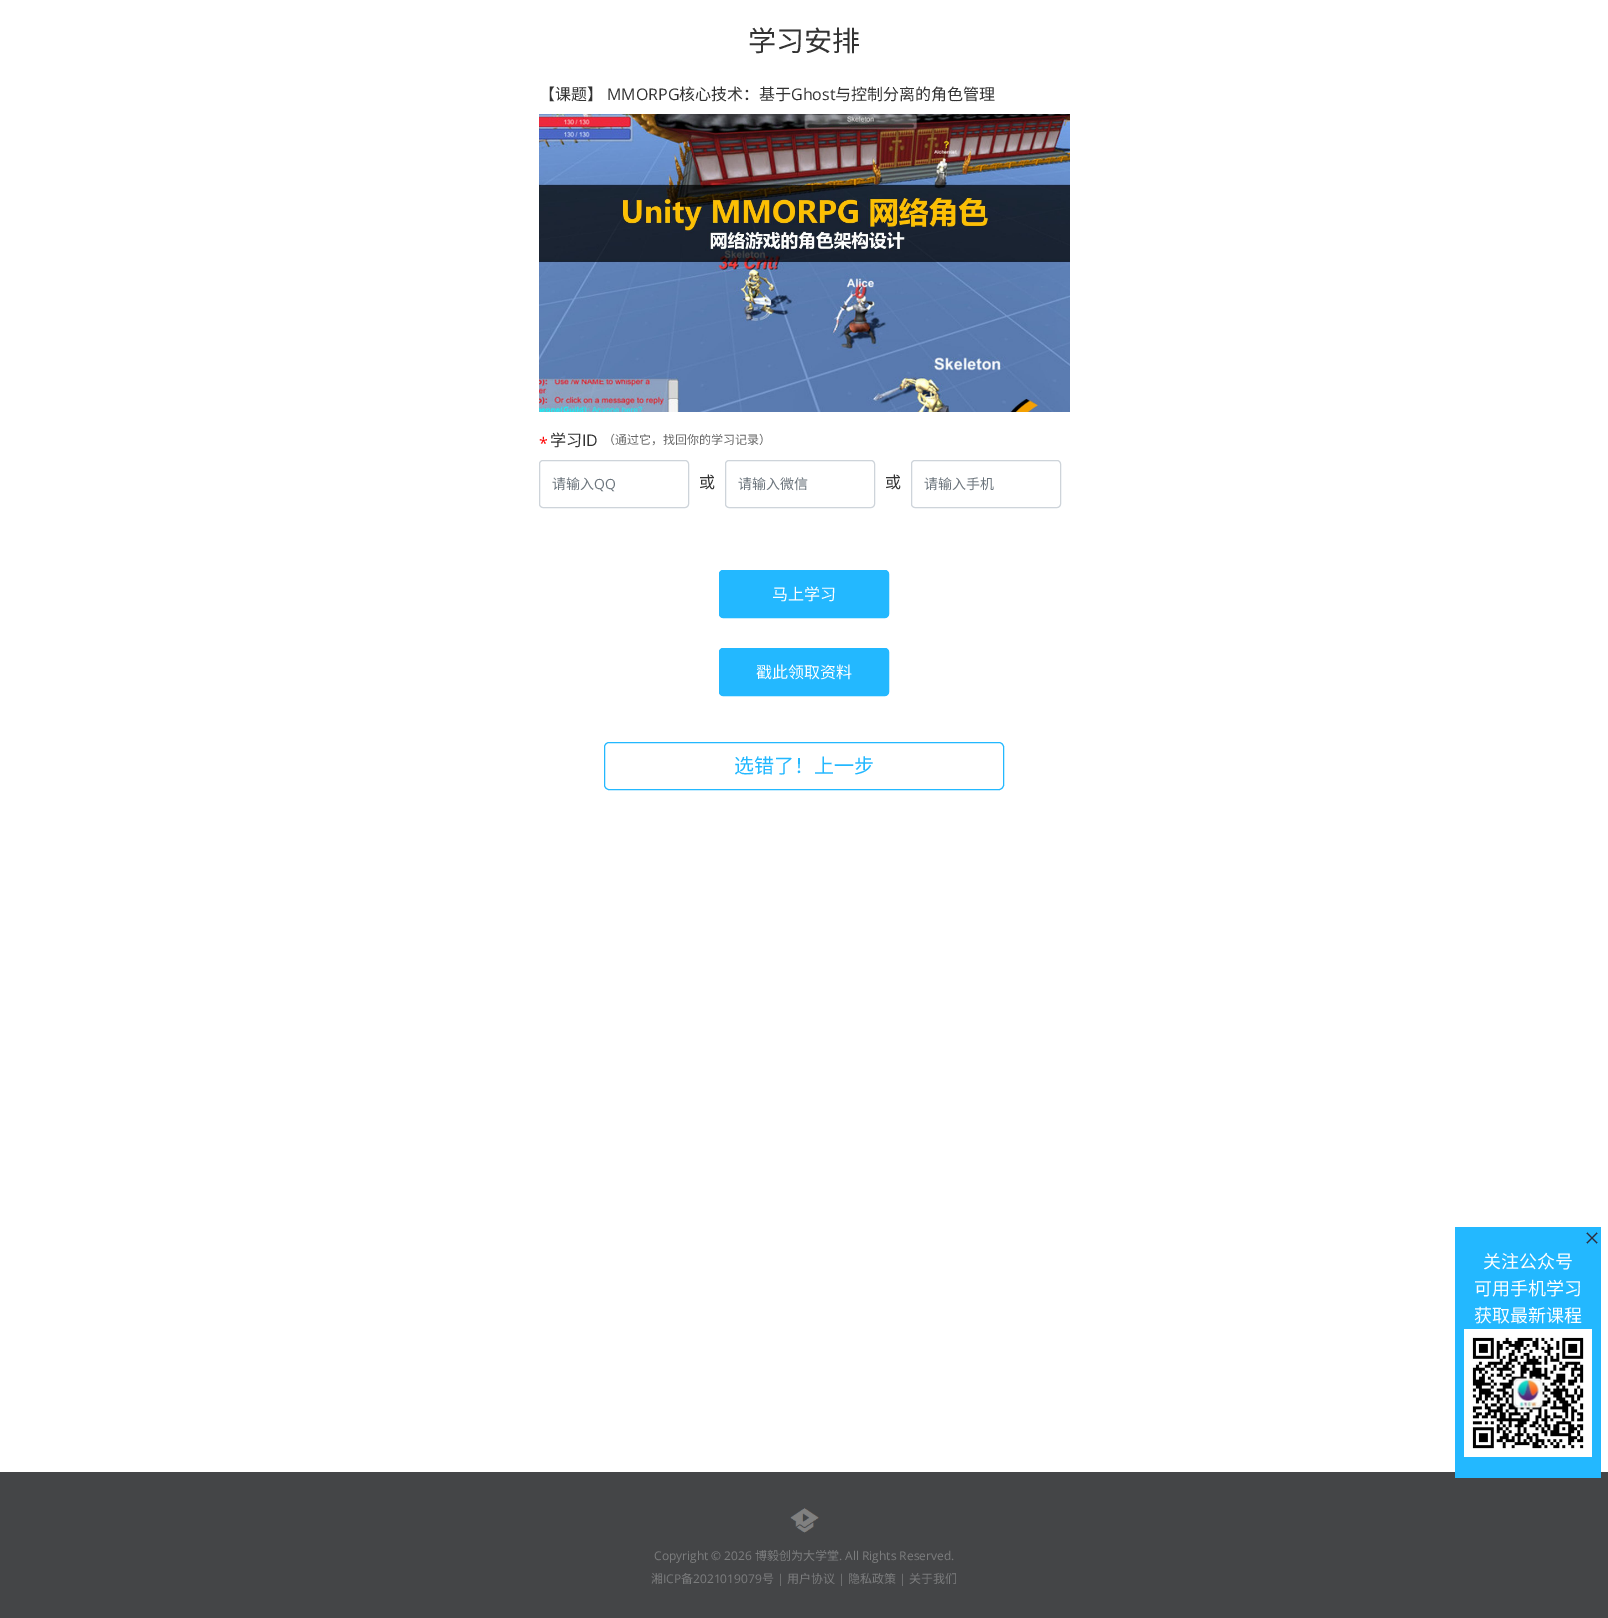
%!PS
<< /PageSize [1608 1618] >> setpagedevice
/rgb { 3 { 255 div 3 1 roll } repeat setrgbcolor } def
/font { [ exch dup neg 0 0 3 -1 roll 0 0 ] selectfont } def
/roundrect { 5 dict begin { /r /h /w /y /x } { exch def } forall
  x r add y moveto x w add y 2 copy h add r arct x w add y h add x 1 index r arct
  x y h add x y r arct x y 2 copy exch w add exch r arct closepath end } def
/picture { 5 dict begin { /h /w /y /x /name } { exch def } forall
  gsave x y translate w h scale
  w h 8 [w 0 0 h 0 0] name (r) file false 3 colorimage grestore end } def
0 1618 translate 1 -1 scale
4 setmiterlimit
255 255 255 rgb
0 0 1608 1618 rectfill
(img/1.rgb) 539 114 531 298 picture
206 212 218 rgb
539.5 460.5 149 47 3.5 roundrect stroke
725.5 460.5 149 47 3.5 roundrect stroke
911.5 460.5 149 47 3.5 roundrect stroke
35 184 255 rgb
719.5 570.5 169 47 3.5 roundrect gsave fill grestore
stroke
719.5 648.5 169 47 3.5 roundrect gsave fill grestore
stroke
604.5 742.5 399 47 4.5 roundrect stroke
68 69 71 rgb
0 1472 1608 146 rectfill
35 184 255 rgb
1455 1227 146 251 rectfill
(img/2.rgb) 1586 1232 12 12 picture
(img/3.rgb) 1464 1329 128 128 picture
(img/4.rgb) 790 1508 29 25 picture
/NotoSansCJKSC-Regular 28 font
51 51 51 rgb
748 51 moveto (学习安排) show
/NotoSansCJKSC-Regular 16 font
539 100 moveto (【课题】) show
/OpenSans-Regular 16 font
607 100 moveto (MMORPG) show
/NotoSansCJKSC-Regular 16 font
679 100 moveto (核心技术：基于) show
/OpenSans-Regular 16 font
791 100 moveto (Ghost) show
/NotoSansCJKSC-Regular 16 font
835 100 moveto (与控制分离的角色管理) show
/OpenSans-Regular 16 font
255 0 0 rgb
539 449 moveto (*) show
/NotoSansCJKSC-Regular 16 font
51 51 51 rgb
550 446 moveto (学习) show
/OpenSans-Regular 16 font
582 446 moveto (ID) show
/NotoSansCJKSC-Regular 12 font
102 102 102 rgb
603 444 moveto (（通过它，找回你的学习记录）) show
/NotoSansCJKSC-Regular 14 font
108 117 125 rgb
552 489 moveto (请输入) show
/OpenSans-Regular 14 font
594 489 moveto (QQ) show
/NotoSansCJKSC-Regular 16 font
51 51 51 rgb
699 488 moveto (或) show
/NotoSansCJKSC-Regular 14 font
108 117 125 rgb
738 489 moveto (请输入微信) show
/NotoSansCJKSC-Regular 16 font
51 51 51 rgb
885 488 moveto (或) show
/NotoSansCJKSC-Regular 14 font
108 117 125 rgb
924 489 moveto (请输入手机) show
/NotoSansCJKSC-Regular 16 font
255 255 255 rgb
772 600 moveto (马上学习) show
756 678 moveto (戳此领取资料) show
/NotoSansCJKSC-Regular 20 font
35 184 255 rgb
734 773 moveto (选错了！上一步) show
/NotoSansCJKSC-Regular 18 font
255 255 255 rgb
[
  [(关注公众号) 1483 1268]
  [(可用手机学习) 1474 1295]
  [(获取最新课程) 1474 1322]
] { aload pop moveto show } forall
/OpenSans-Regular 12 font
124 125 126 rgb
654 1560 moveto (Copyright © 2026) show
/NotoSansCJKSC-Regular 12 font
755 1560 moveto (博毅创为大学堂) show
/OpenSans-Regular 12 font
839 1560 moveto (. All Rights Reserved.) show
/NotoSansCJKSC-Regular 12 font
651 1583 moveto (湘) show
/OpenSans-Regular 12 font
663 1583 moveto (ICP) show
/NotoSansCJKSC-Regular 12 font
681 1583 moveto (备) show
/OpenSans-Regular 12 font
693 1583 moveto (2021019079) show
/NotoSansCJKSC-Regular 12 font
762 1583 moveto (号) show
/OpenSans-Regular 12 font
777 1583 moveto (|) show
/NotoSansCJKSC-Regular 12 font
787 1583 moveto (用户协议) show
/OpenSans-Regular 12 font
838 1583 moveto (|) show
/NotoSansCJKSC-Regular 12 font
848 1583 moveto (隐私政策) show
/OpenSans-Regular 12 font
899 1583 moveto (|) show
/NotoSansCJKSC-Regular 12 font
909 1583 moveto (关于我们) show
showpage
